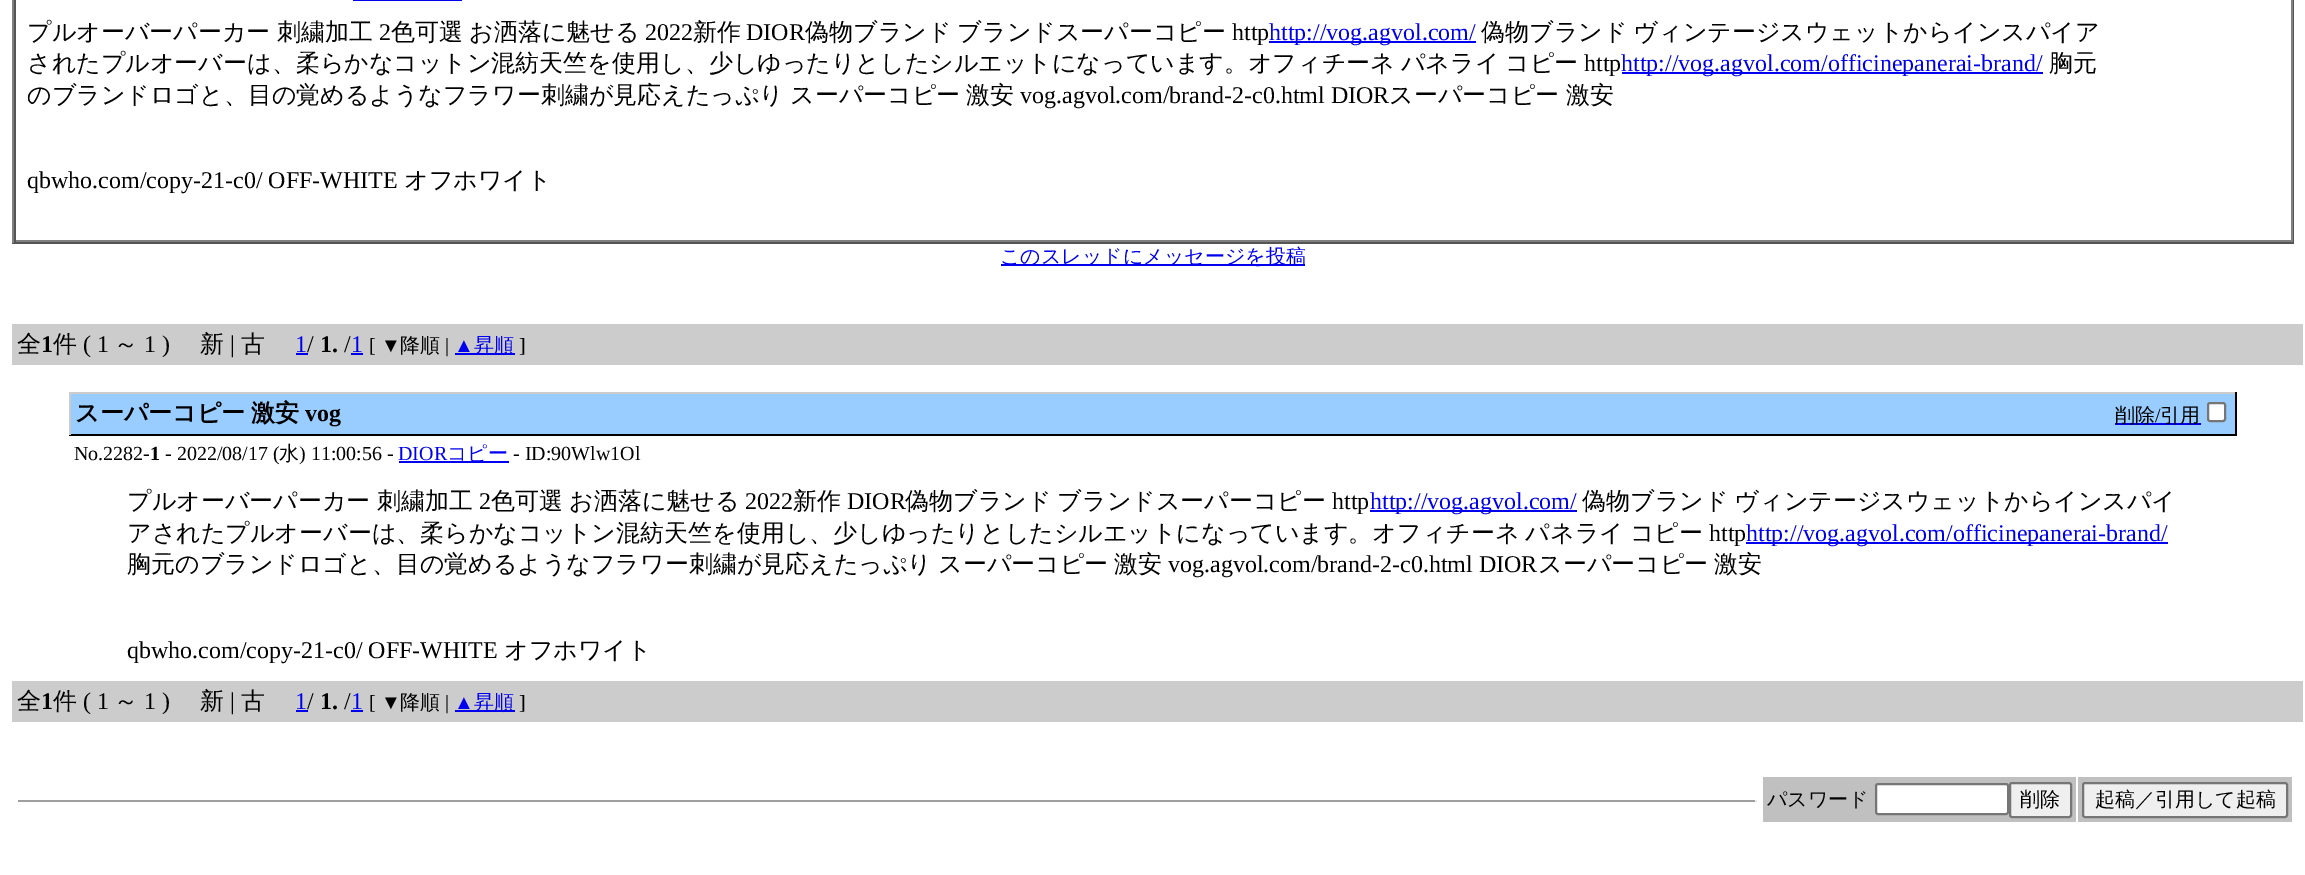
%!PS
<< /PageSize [2305 875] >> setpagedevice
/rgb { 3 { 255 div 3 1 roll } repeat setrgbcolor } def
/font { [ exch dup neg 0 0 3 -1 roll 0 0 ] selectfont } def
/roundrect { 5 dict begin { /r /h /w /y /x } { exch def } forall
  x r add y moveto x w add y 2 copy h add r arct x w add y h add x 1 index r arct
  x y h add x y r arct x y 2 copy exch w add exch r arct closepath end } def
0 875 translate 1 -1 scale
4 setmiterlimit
255 255 255 rgb
0 0 2305 875 rectfill
[
  [2293 0 1 243 85 85 85]
  [12 242 2282 2 85 85 85]
  [12 0 2 243 128 128 128]
  [2291 0 2 242 128 128 128]
  [14 240 2278 2 128 128 128]
  [14 0 2 242 85 85 85]
  [353 0 109 1 0 0 238]
  [1269 41 207 2 0 0 238]
  [1622 72 421 2 0 0 238]
  [1001 264 304 2 0 0 238]
  [12 324 2291 41 204 204 204]
  [296 353 12 2 0 0 238]
  [351 353 12 2 0 0 238]
  [455 353 60 2 0 0 238]
  [71 394 2164 40 153 204 255]
  [69 392 2168 2 204 204 204]
  [69 434 2042 2 0 0 0]
  [69 392 2 43 204 204 204]
  [2235 392 2 43 0 0 0]
  [2111 434 126 2 0 0 0]
  [2115 423 86 2 0 0 238]
] { aload pop rgb rectfill } forall
255 255 255 rgb
2208 403 17 18 2 roundrect gsave fill grestore
118 118 118 rgb
2 setlinewidth
stroke
[
  [399 461 110 2 0 0 238]
  [1370 510 207 2 0 0 238]
  [1746 542 422 2 0 0 238]
  [12 681 2291 41 204 204 204]
  [296 710 12 2 0 0 238]
  [351 710 12 2 0 0 238]
  [455 710 60 2 0 0 238]
  [18 800 1739 2 159 159 159]
  [1755 800 2 2 238 238 238]
  [1763 777 313 45 192 192 192]
] { aload pop rgb rectfill } forall
255 255 255 rgb
1876 784 132 30 2 roundrect gsave fill grestore
118 118 118 rgb
stroke
239 239 239 rgb
2010 783 61 34 2 roundrect gsave fill grestore
118 118 118 rgb
stroke
192 192 192 rgb
2078 777 214 45 rectfill
239 239 239 rgb
2083 783 204 34 2 roundrect gsave fill grestore
118 118 118 rgb
stroke
/WenQuanYiZenHei-Medium 24 font
0 0 0 rgb
27 40 moveto -1 0 32 (プルオーバーパーカー 刺繍加工) widthshow
/LiberationSerif-Regular 24 font
379 40 moveto (2) show
/WenQuanYiZenHei-Medium 24 font
391 40 moveto -1 0 32 (色可選 お洒落に魅せる) widthshow
/LiberationSerif-Regular 24 font
645 40 moveto (2022) show
/WenQuanYiZenHei-Medium 24 font
693 40 moveto (新作) show
/LiberationSerif-Regular 24 font
746 40 moveto (DIOR) show
/WenQuanYiZenHei-Medium 24 font
805 40 moveto -1 0 32 (偽物ブランド ブランドスーパーコピー) widthshow
/LiberationSerif-Regular 24 font
1232 40 moveto (http) show
0 0 238 rgb
1269 40 moveto (http://vog.agvol.com/) show
/WenQuanYiZenHei-Medium 24 font
0 0 0 rgb
1481 40 moveto -1 0 32 (偽物ブランド ヴィンテージスウェットからインスパイア) widthshow
27 71 moveto -1 0 32 (されたプルオーバーは、柔らかなコットン混紡天竺を使用し、少しゆったりとしたシルエットになっています。オフィチーネ パネライ コピー) widthshow
/LiberationSerif-Regular 24 font
1584 71 moveto (http) show
0 0 238 rgb
1621 71 moveto (http://vog.agvol.com/officinepanerai-brand/) show
/WenQuanYiZenHei-Medium 24 font
0 0 0 rgb
[
  [(胸元) 2049 71]
  [(のブランドロゴと、目の覚めるようなフラワー刺繍が見応えたっぷり) 27 103]
  [(スーパーコピー) 790 103]
  [(激安) 966 103]
] { aload pop moveto show } forall
/LiberationSerif-Regular 24 font
1020 103 moveto (vog.agvol.com/brand-2-c0.html DIOR) show
/WenQuanYiZenHei-Medium 24 font
1389 103 moveto (スーパーコピー) show
1566 103 moveto (激安) show
/LiberationSerif-Regular 24 font
27 188 moveto (qbwho.com/copy-21-c0/ OFF-WHITE) show
/WenQuanYiZenHei-Medium 24 font
404 188 moveto (オフホワイト) show
/WenQuanYiZenHei-Medium 20 font
0 0 238 rgb
1000 263 moveto (このスレッドにメッセージを投稿) show
/WenQuanYiZenHei-Medium 24 font
0 0 0 rgb
17 352 moveto (全) show
/LiberationSerif-Bold 24 font
41 352 moveto (1) show
/WenQuanYiZenHei-Medium 24 font
53 352 moveto (件) show
/LiberationSerif-Regular 24 font
83 352 moveto (\( 1) show
/WenQuanYiZenHei-Medium 24 font
114 352 moveto (～) show
/LiberationSerif-Regular 24 font
144 352 moveto (1 \)) show
/WenQuanYiZenHei-Medium 24 font
200 352 moveto (新) show
/LiberationSerif-Regular 24 font
230 352 moveto (|) show
/WenQuanYiZenHei-Medium 24 font
241 352 moveto (古) show
/LiberationSerif-Regular 24 font
0 0 238 rgb
295 352 moveto (1) show
0 0 0 rgb
307 352 moveto (/) show
/LiberationSerif-Bold 24 font
320 352 moveto (1.) show
/LiberationSerif-Regular 24 font
344 352 moveto (/) show
0 0 238 rgb
351 352 moveto (1) show
/LiberationSerif-Regular 20 font
0 0 0 rgb
369 352 moveto ([ ▼) show
/WenQuanYiZenHei-Medium 20 font
400 352 moveto (降順) show
/LiberationSerif-Regular 20 font
445 352 moveto (|) show
0 0 238 rgb
454 352 moveto (▲) show
/WenQuanYiZenHei-Medium 20 font
474 352 moveto (昇順) show
/LiberationSerif-Regular 20 font
0 0 0 rgb
519 352 moveto (]) show
/WenQuanYiZenHei-Bold 24 font
75 421 moveto -1 0 32 (スーパーコピー 激安) widthshow
/LiberationSerif-Bold 24 font
305 421 moveto (vog) show
/WenQuanYiZenHei-Medium 20 font
2115 422 moveto (削除) show
/LiberationSerif-Regular 20 font
2155 422 moveto (/) show
/WenQuanYiZenHei-Medium 20 font
2160 422 moveto (引用) show
/LiberationSerif-Regular 20 font
74 460 moveto (No.2282-) show
/LiberationSerif-Bold 20 font
150 460 moveto (1) show
/LiberationSerif-Regular 20 font
165 460 moveto (- 2022/08/17 \() show
/WenQuanYiZenHei-Medium 20 font
279 460 moveto (水) show
/LiberationSerif-Regular 20 font
299 460 moveto (\) 11:00:56 -) show
0 0 238 rgb
398 460 moveto (DIOR) show
/WenQuanYiZenHei-Medium 20 font
447 460 moveto (コピー) show
/LiberationSerif-Regular 20 font
0 0 0 rgb
513 460 moveto (- ID:90Wlw1Ol) show
/WenQuanYiZenHei-Medium 24 font
127 509 moveto -1 0 32 (プルオーバーパーカー 刺繍加工) widthshow
/LiberationSerif-Regular 24 font
479 509 moveto (2) show
/WenQuanYiZenHei-Medium 24 font
491 509 moveto -1 0 32 (色可選 お洒落に魅せる) widthshow
/LiberationSerif-Regular 24 font
745 509 moveto (2022) show
/WenQuanYiZenHei-Medium 24 font
793 509 moveto (新作) show
/LiberationSerif-Regular 24 font
847 509 moveto (DIOR) show
/WenQuanYiZenHei-Medium 24 font
905 509 moveto -1 0 32 (偽物ブランド ブランドスーパーコピー) widthshow
/LiberationSerif-Regular 24 font
1332 509 moveto (http) show
0 0 238 rgb
1370 509 moveto (http://vog.agvol.com/) show
/WenQuanYiZenHei-Medium 24 font
0 0 0 rgb
1582 509 moveto -1 0 32 (偽物ブランド ヴィンテージスウェットからインスパイ) widthshow
127 541 moveto -1 0 32 (アされたプルオーバーは、柔らかなコットン混紡天竺を使用し、少しゆったりとしたシルエットになっています。オフィチーネ パネライ コピー) widthshow
/LiberationSerif-Regular 24 font
1709 541 moveto (http) show
0 0 238 rgb
1746 541 moveto (http://vog.agvol.com/officinepanerai-brand/) show
/WenQuanYiZenHei-Medium 24 font
0 0 0 rgb
[
  [(胸元のブランドロゴと、目の覚めるようなフラワー刺繍が見応えたっぷり) 127 572]
  [(スーパーコピー) 938 572]
  [(激安) 1114 572]
] { aload pop moveto show } forall
/LiberationSerif-Regular 24 font
1168 572 moveto (vog.agvol.com/brand-2-c0.html DIOR) show
/WenQuanYiZenHei-Medium 24 font
1538 572 moveto (スーパーコピー) show
1714 572 moveto (激安) show
/LiberationSerif-Regular 24 font
127 658 moveto (qbwho.com/copy-21-c0/ OFF-WHITE) show
/WenQuanYiZenHei-Medium 24 font
504 658 moveto (オフホワイト) show
17 709 moveto (全) show
/LiberationSerif-Bold 24 font
41 709 moveto (1) show
/WenQuanYiZenHei-Medium 24 font
53 709 moveto (件) show
/LiberationSerif-Regular 24 font
83 709 moveto (\( 1) show
/WenQuanYiZenHei-Medium 24 font
114 709 moveto (～) show
/LiberationSerif-Regular 24 font
144 709 moveto (1 \)) show
/WenQuanYiZenHei-Medium 24 font
200 709 moveto (新) show
/LiberationSerif-Regular 24 font
230 709 moveto (|) show
/WenQuanYiZenHei-Medium 24 font
241 709 moveto (古) show
/LiberationSerif-Regular 24 font
0 0 238 rgb
295 709 moveto (1) show
0 0 0 rgb
307 709 moveto (/) show
/LiberationSerif-Bold 24 font
320 709 moveto (1.) show
/LiberationSerif-Regular 24 font
344 709 moveto (/) show
0 0 238 rgb
351 709 moveto (1) show
/LiberationSerif-Regular 20 font
0 0 0 rgb
369 709 moveto ([ ▼) show
/WenQuanYiZenHei-Medium 20 font
400 709 moveto (降順) show
/LiberationSerif-Regular 20 font
445 709 moveto (|) show
0 0 238 rgb
454 709 moveto (▲) show
/WenQuanYiZenHei-Medium 20 font
474 709 moveto (昇順) show
/LiberationSerif-Regular 20 font
0 0 0 rgb
519 709 moveto (]) show
/WenQuanYiZenHei-Medium 20 font
[
  [(パスワード) 1767 806]
  [(削除) 2020 806]
  [(起稿／引用して起稿) 2095 806]
] { aload pop moveto show } forall
showpage
